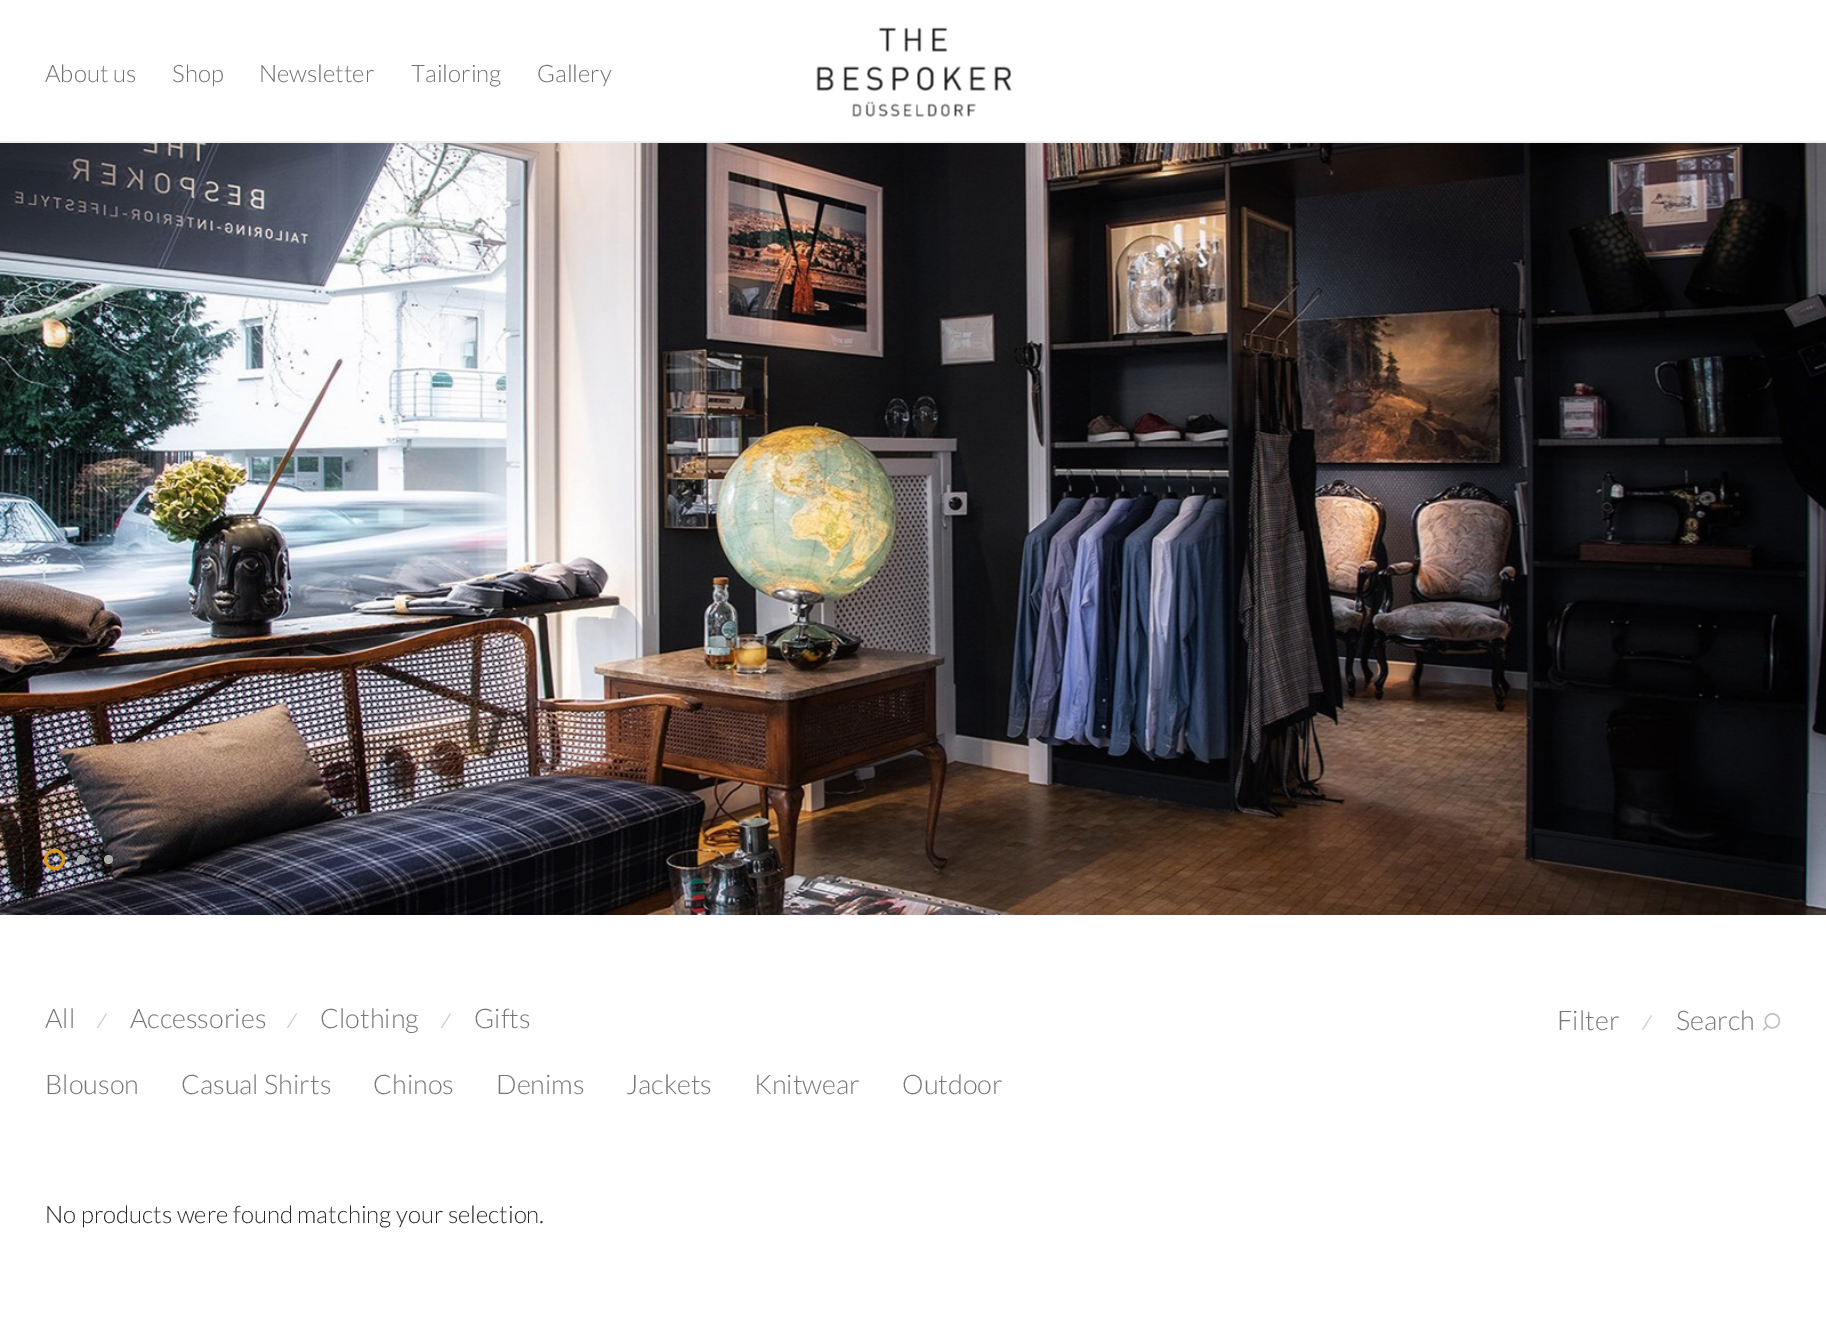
%!PS
<< /PageSize [1826 1329] >> setpagedevice
/rgb { 3 { 255 div 3 1 roll } repeat setrgbcolor } def
/font { [ exch dup neg 0 0 3 -1 roll 0 0 ] selectfont } def
/circle { newpath 0 360 arc closepath } def
/picture { 5 dict begin { /h /w /y /x /name } { exch def } forall
  gsave x y translate w h scale
  w h 8 [w 0 0 h 0 0] name (r) file false 3 colorimage grestore end } def
0 1329 translate 1 -1 scale
4 setmiterlimit
255 255 255 rgb
0 0 1826 1329 rectfill
238 238 238 rgb
0 141 1826 2 rectfill
(img/1.rgb) 816 27 196 90 picture
(img/2.rgb) 0 143 1826 772 picture
220 152 20 rgb
3 setlinewidth
54.5 859.5 9 circle stroke
170 170 170 rgb
81.5 859.5 4.5 circle fill
108.5 859.5 4.5 circle fill
(img/3.rgb) 1762 1013 19 18 picture
/Lato-Light 24 font
112 112 112 rgb
[
  [(About us) 45 82]
  [(Shop) 172 82]
  [(Newsletter) 259 82]
  [(Tailoring) 411 82]
  [(Gallery) 537 82]
] { aload pop moveto show } forall
/Lato-Light 27 font
119 119 119 rgb
45 1028 moveto (All) show
/LiberationSans-Regular 21 font
204 204 204 rgb
101 1028 moveto (⁄) show
/Lato-Light 27 font
119 119 119 rgb
130 1028 moveto (Accessories) show
/LiberationSans-Regular 21 font
204 204 204 rgb
291 1028 moveto (⁄) show
/Lato-Light 27 font
119 119 119 rgb
320 1028 moveto (Clothing) show
/LiberationSans-Regular 21 font
204 204 204 rgb
445 1028 moveto (⁄) show
/Lato-Light 27 font
119 119 119 rgb
[
  [(Gifts) 474 1028]
  [(Blouson) 45 1094]
  [(Casual Shirts) 181 1094]
  [(Chinos) 373 1094]
  [(Denims) 496 1094]
  [(Jackets) 626 1094]
  [(Knitwear) 754 1094]
  [(Outdoor) 902 1094]
  [(Filter) 1557 1030]
] { aload pop moveto show } forall
/LiberationSans-Regular 21 font
204 204 204 rgb
1646 1030 moveto (⁄) show
/Lato-Light 27 font
119 119 119 rgb
1676 1030 moveto (Search) show
/Lato-Light 24 font
40 40 40 rgb
45 1223 moveto (No products were found matching your selection.) show
showpage
